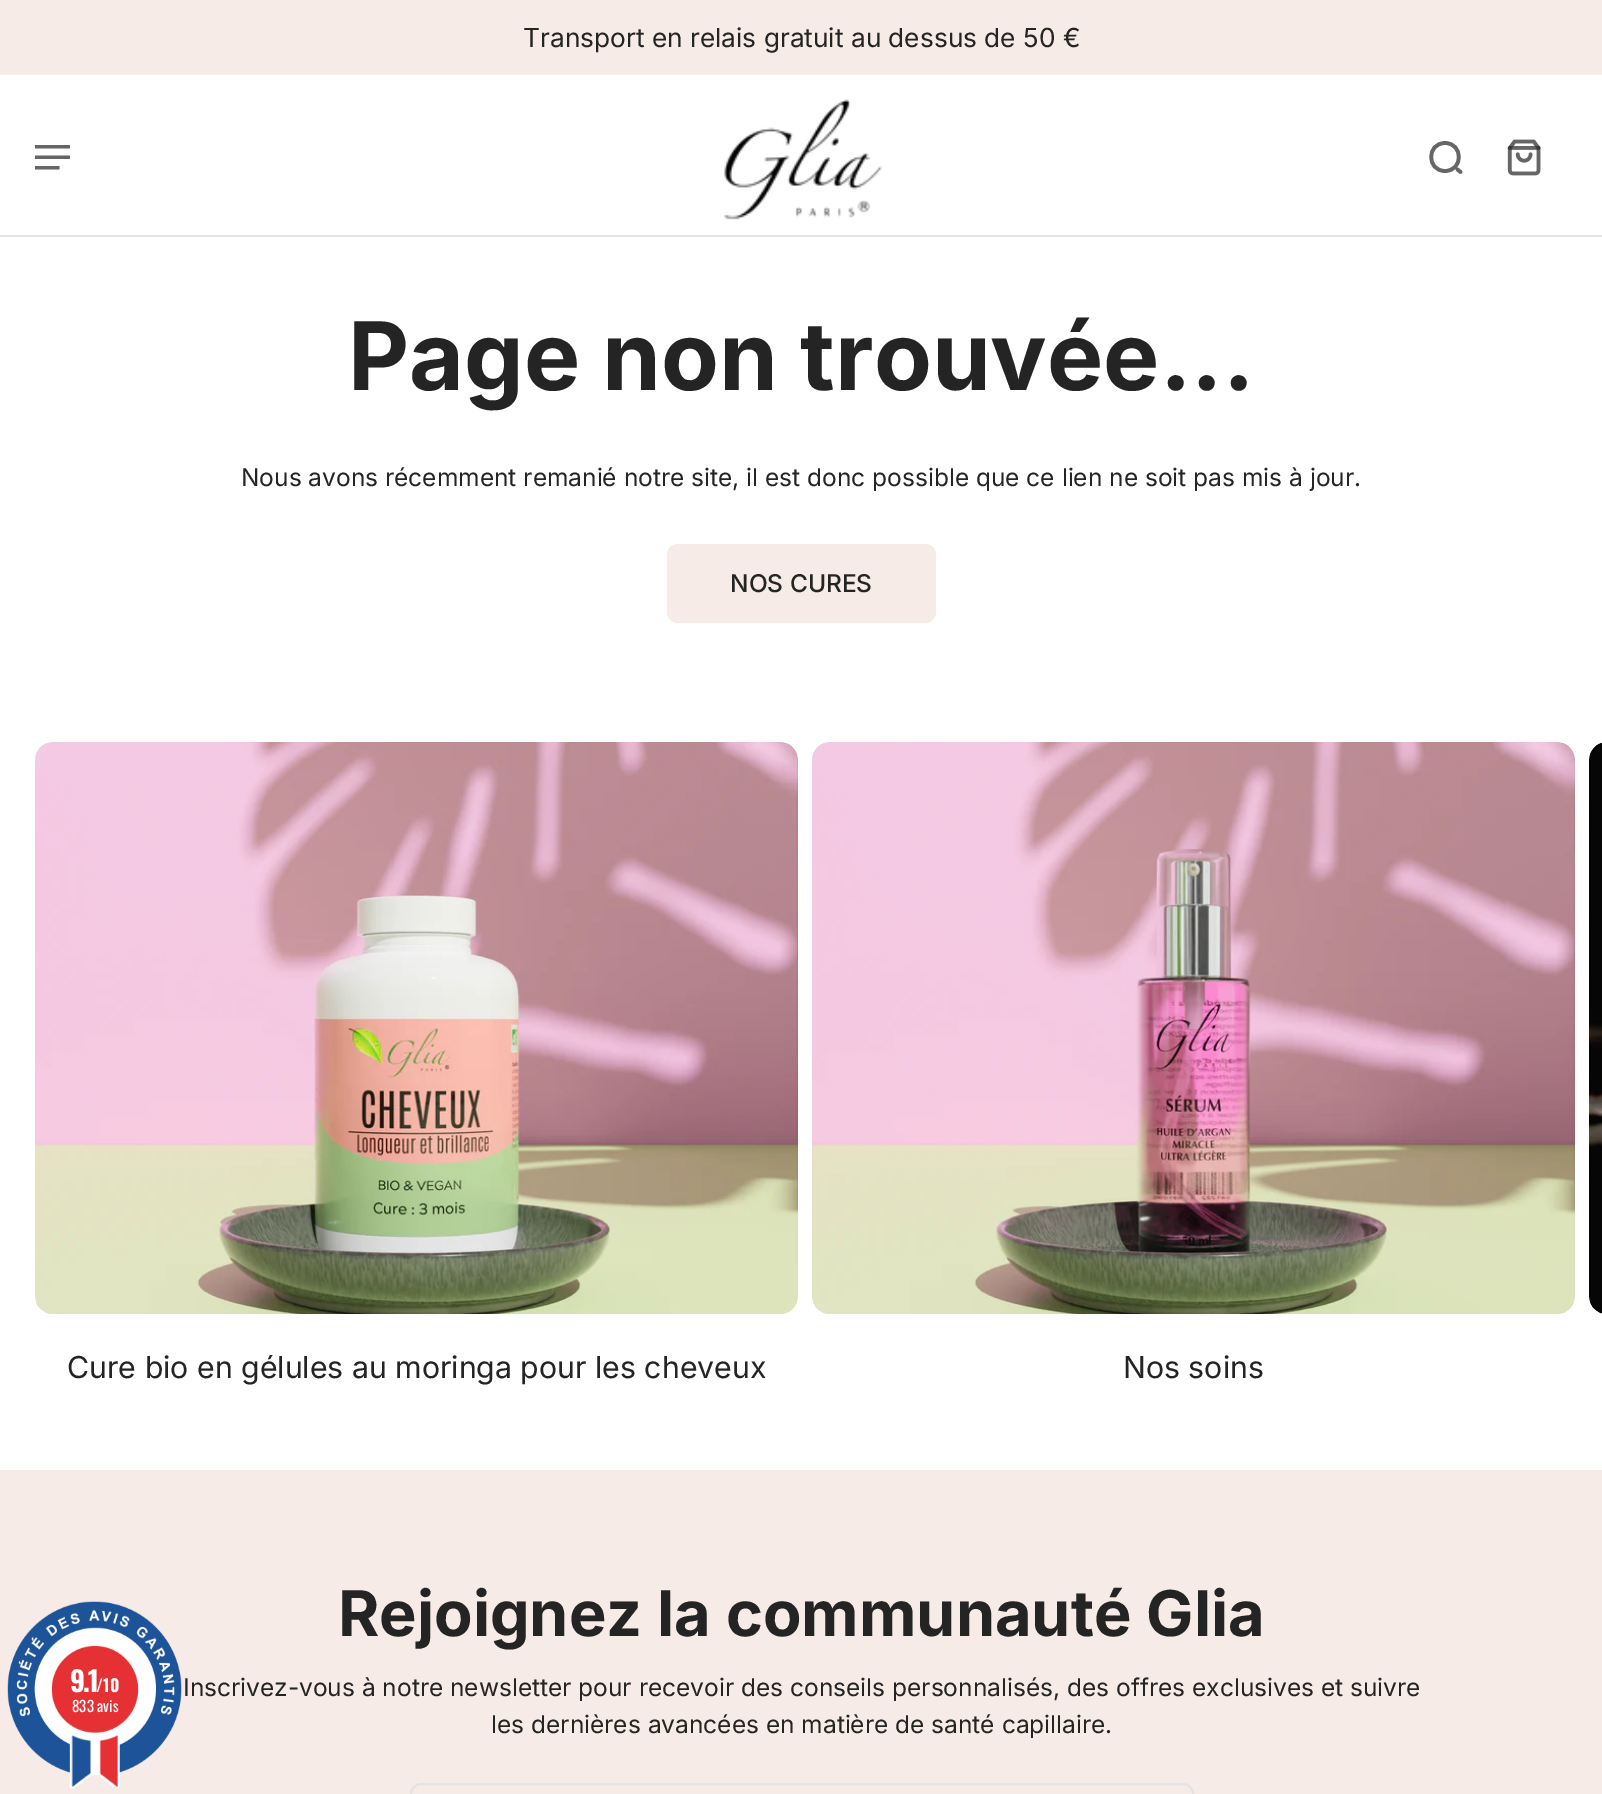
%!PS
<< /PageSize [1602 1794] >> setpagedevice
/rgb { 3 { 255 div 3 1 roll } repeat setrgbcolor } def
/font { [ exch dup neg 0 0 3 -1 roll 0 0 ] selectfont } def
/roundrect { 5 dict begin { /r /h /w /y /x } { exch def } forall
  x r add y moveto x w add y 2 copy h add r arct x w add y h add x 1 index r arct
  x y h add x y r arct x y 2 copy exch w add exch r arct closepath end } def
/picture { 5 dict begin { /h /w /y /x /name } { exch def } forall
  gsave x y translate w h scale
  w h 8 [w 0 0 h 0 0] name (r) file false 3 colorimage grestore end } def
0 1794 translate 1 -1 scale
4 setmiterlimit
255 255 255 rgb
0 0 1602 1794 rectfill
246 235 231 rgb
0 0 1602 75 rectfill
102 102 102 rgb
35 145 moveto 35 148.5 lineto 70 148.5 lineto 70 145 lineto closepath 35 159 moveto 70 159 lineto 70 155.5 lineto 35 155.5 lineto closepath 35 169.5 moveto 59.5 169.5 lineto 59.5 166 lineto 35 166 lineto closepath eofill
(img/1.rgb) 724 99 159 121 picture
3.7 setlinewidth
1 setlinecap
1 setlinejoin
1445 171 moveto 1463.5 171 1463.5 143 1445 143 curveto 1426.5 143 1426.5 171 1445 171 curveto closepath 1460.5 172 moveto 1457.5 169.5 lineto stroke
(img/2.rgb) 1507 139 34 37 picture
227 227 227 rgb
0 235 1602 2 rectfill
246 235 231 rgb
667 544 269 79 11 roundrect fill
(img/3.rgb) 1589 742 13 572 picture
(img/4.rgb) 35 742 763 572 picture
(img/5.rgb) 812 742 763 572 picture
0 1470 1602 324 rectfill
(img/6.rgb) 7 1601 175 188 picture
227 227 227 rgb
2 setlinewidth
0 setlinecap
0 setlinejoin
411 1784 782 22 10 roundrect stroke
/Inter-Regular 26.25 font
36 36 36 rgb
523 47 moveto (Transport en relais gratuit au dessus de 50 €) show
/Inter-Bold 94.5 font
348 390 moveto (Page non trouvée...) show
/Inter-Regular 24.5 font
241 486 moveto (Nous avons récemment remanié notre site, il est donc possible que ce lien ne soit pas mis à jour.) show
/Inter-Medium 24.5 font
730 592 moveto (NOS CURES) show
/Inter-Regular 30.25 font
67 1378 moveto (Cure bio en gélules au moringa pour les cheveux) show
1123 1378 moveto (Nos soins) show
/Oswald-Bold 28 font
255 255 255 rgb
70 1692 moveto -2 0 (9.1) ashow
/Oswald-Bold 17 font
96 1692 moveto (/10) show
/Oswald-Regular 15 font
72 1712 moveto (833 avis) show
/Inter-Bold 63 font
36 36 36 rgb
338 1636 moveto (Rejoignez la communauté Glia) show
/Inter-Regular 24.5 font
183 1696 moveto (Inscrivez-vous à notre newsletter pour recevoir des conseils personnalisés, des offres exclusives et suivre) show
491 1733 moveto (les dernières avancées en matière de santé capillaire.) show
showpage
